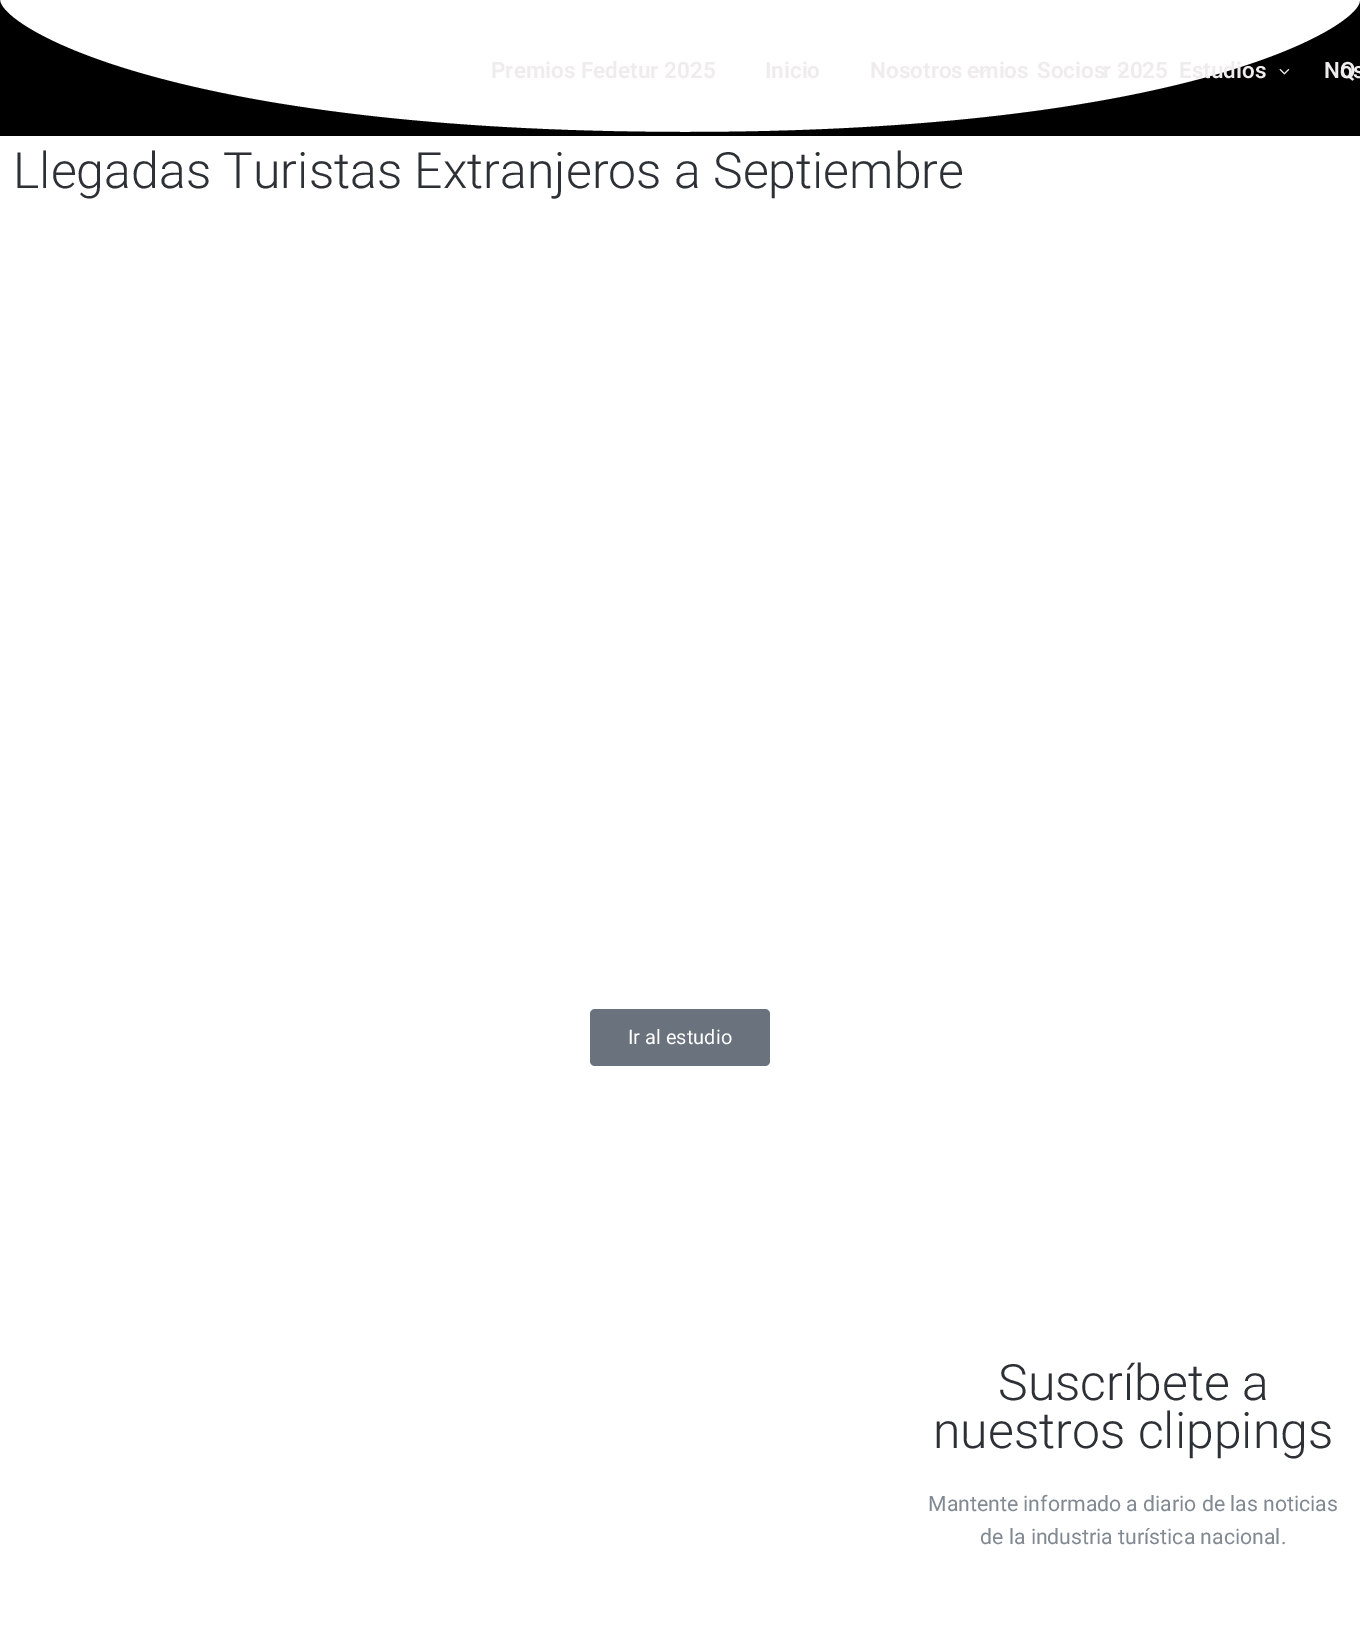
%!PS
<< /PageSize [1360 1633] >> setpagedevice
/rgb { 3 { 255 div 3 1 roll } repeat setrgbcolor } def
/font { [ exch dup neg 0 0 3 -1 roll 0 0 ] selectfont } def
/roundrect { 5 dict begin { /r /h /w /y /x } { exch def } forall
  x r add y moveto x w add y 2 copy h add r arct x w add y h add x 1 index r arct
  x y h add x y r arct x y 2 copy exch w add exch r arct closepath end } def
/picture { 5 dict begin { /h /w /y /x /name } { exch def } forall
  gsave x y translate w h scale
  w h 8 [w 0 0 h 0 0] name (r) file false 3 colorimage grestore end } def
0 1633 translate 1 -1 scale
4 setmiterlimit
255 255 255 rgb
0 0 1360 1633 rectfill
0 0 0 rgb
680 132 moveto 172 131 1 27 0 0 curveto 0 136 lineto 1360 136 lineto 1360 1 lineto 1360 26 1188 133 680 132 curveto closepath fill
(img/1.rgb) 977 69 10 6 picture
(img/2.rgb) 1118 69 10 6 picture
(img/3.rgb) 1279 68 11 7 picture
105 114 125 rgb
590 1009 180 57 5 roundrect fill
/Roboto-SemiBold 22.5 font
239 236 236 rgb
[
  [(Premios Fedetur 2025) 491 78]
  [(Inicio) 765 78]
  [(Nosotros) 870 78]
  [(Socios) 1037 78]
  [(Estudios) 1179 78]
  [(Q) 1340 78]
  [(emios) 967 78]
  [(r 2025) 1103 78]
  [(Nos) 1324 78]
] { aload pop moveto show } forall
/Roboto-Light 50 font
45 49 54 rgb
13 188 moveto (Llegadas Turistas Extranjeros a Septiembre) show
/Roboto-Regular 20 font
255 255 255 rgb
628 1044 moveto (Ir al estudio) show
/Roboto-Light 50 font
45 49 54 rgb
998 1400 moveto (Suscríbete a) show
933 1448 moveto (nuestros clippings) show
/Roboto-Regular 21.25 font
129 137 146 rgb
928 1511 moveto (Mantente informado a diario de las noticias) show
980 1544 moveto (de la industria turística nacional.) show
showpage
